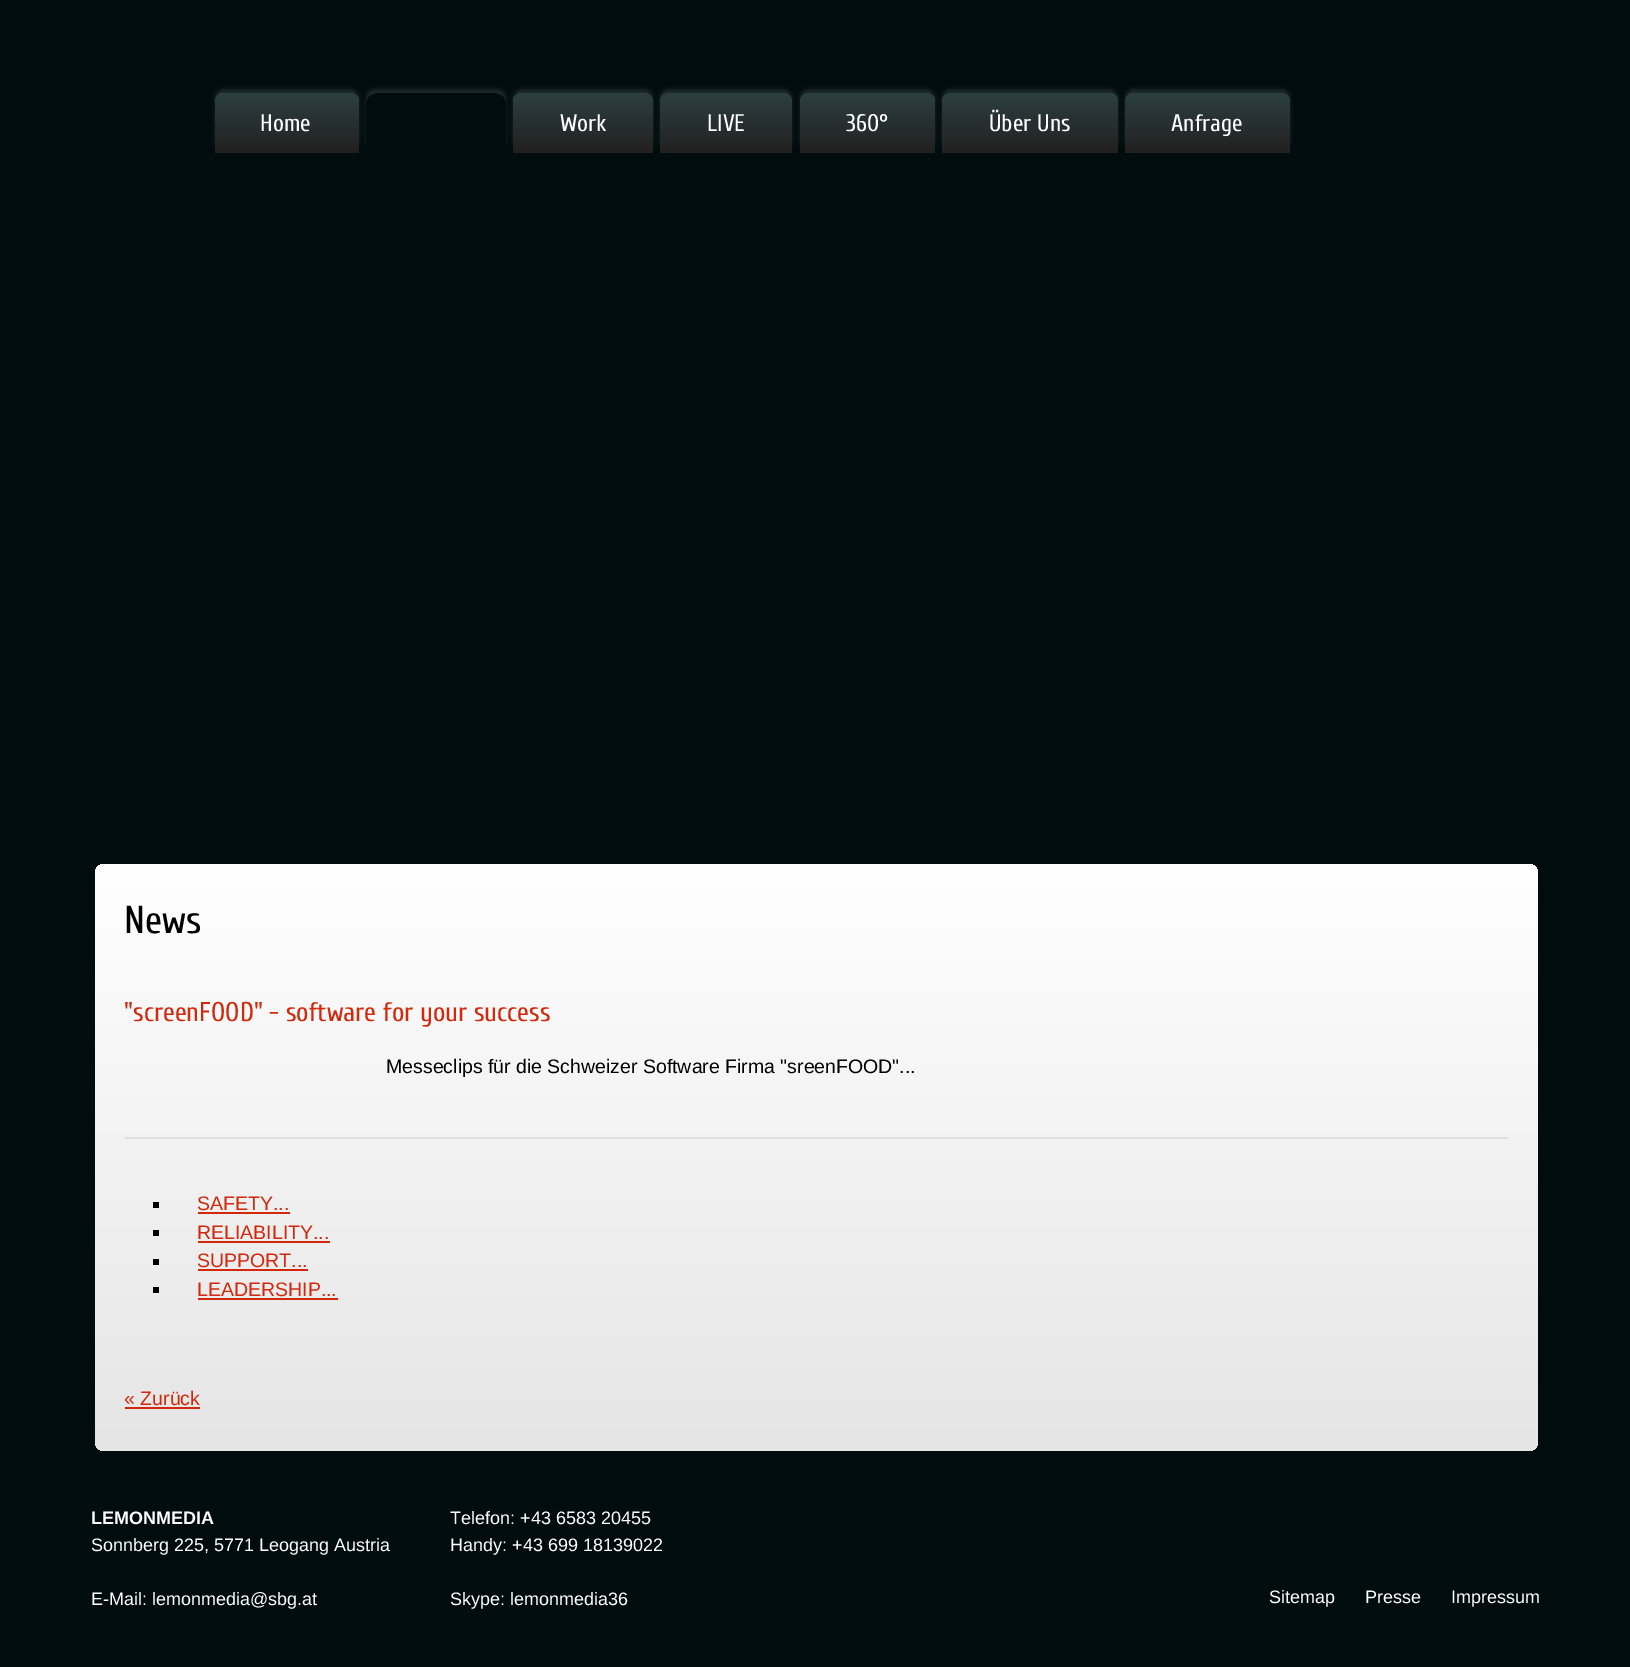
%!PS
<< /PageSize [1630 1667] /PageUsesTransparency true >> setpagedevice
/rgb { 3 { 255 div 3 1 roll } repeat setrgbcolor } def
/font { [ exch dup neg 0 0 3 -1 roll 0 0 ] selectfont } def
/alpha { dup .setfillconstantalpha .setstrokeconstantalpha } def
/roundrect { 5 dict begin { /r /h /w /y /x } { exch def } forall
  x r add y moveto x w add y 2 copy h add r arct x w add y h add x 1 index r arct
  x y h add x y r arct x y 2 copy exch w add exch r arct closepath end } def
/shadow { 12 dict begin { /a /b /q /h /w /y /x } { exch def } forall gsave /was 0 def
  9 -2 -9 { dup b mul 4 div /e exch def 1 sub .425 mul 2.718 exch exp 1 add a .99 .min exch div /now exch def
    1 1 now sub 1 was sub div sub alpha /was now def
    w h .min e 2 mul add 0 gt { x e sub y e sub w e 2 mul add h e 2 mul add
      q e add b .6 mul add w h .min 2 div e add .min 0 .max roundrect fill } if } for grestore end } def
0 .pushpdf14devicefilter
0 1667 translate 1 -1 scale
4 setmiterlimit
0 12 13 rgb
0 0 1630 1667 rectfill
31 42 43 rgb
215 89 144 60 9 2 1 shadow
gsave 224 93 moveto 350 93 lineto 355 93 359 97 359 102 curveto 359 153 lineto 215 153 lineto 215 102 lineto 215 97 219 93 224 93 curveto closepath clip newpath
<< /ShadingType 2 /ColorSpace /DeviceRGB /Coords [287 93 287 153] /Extend [true true] /Function << /FunctionType 2 /Domain [0 1] /C0 [0.173 0.247 0.255] /C1 [0.137 0.125 0.125] /N 1 >> >> shfill grestore
gsave
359 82 moveto 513 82 lineto 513 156 lineto 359 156 lineto closepath 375 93 moveto 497 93 lineto 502 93 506 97 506 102 curveto 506 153 lineto 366 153 lineto 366 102 lineto 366 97 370 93 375 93 curveto closepath eoclip newpath
366 89 140 60 9 2 1 shadow
grestore
513 89 140 60 9 2 1 shadow
gsave 522 93 moveto 644 93 lineto 649 93 653 97 653 102 curveto 653 153 lineto 513 153 lineto 513 102 lineto 513 97 517 93 522 93 curveto closepath clip newpath
<< /ShadingType 2 /ColorSpace /DeviceRGB /Coords [583 93 583 153] /Extend [true true] /Function << /FunctionType 2 /Domain [0 1] /C0 [0.173 0.247 0.255] /C1 [0.137 0.125 0.125] /N 1 >> >> shfill grestore
660 89 132 60 9 2 1 shadow
gsave 669 93 moveto 783 93 lineto 788 93 792 97 792 102 curveto 792 153 lineto 660 153 lineto 660 102 lineto 660 97 664 93 669 93 curveto closepath clip newpath
<< /ShadingType 2 /ColorSpace /DeviceRGB /Coords [726 93 726 153] /Extend [true true] /Function << /FunctionType 2 /Domain [0 1] /C0 [0.173 0.247 0.255] /C1 [0.137 0.125 0.125] /N 1 >> >> shfill grestore
800 89 135 60 9 2 1 shadow
gsave 809 93 moveto 926 93 lineto 931 93 935 97 935 102 curveto 935 153 lineto 800 153 lineto 800 102 lineto 800 97 804 93 809 93 curveto closepath clip newpath
<< /ShadingType 2 /ColorSpace /DeviceRGB /Coords [867 93 867 153] /Extend [true true] /Function << /FunctionType 2 /Domain [0 1] /C0 [0.173 0.247 0.255] /C1 [0.137 0.125 0.125] /N 1 >> >> shfill grestore
942 89 176 60 9 2 1 shadow
gsave 951 93 moveto 1109 93 lineto 1114 93 1118 97 1118 102 curveto 1118 153 lineto 942 153 lineto 942 102 lineto 942 97 946 93 951 93 curveto closepath clip newpath
<< /ShadingType 2 /ColorSpace /DeviceRGB /Coords [1030 93 1030 153] /Extend [true true] /Function << /FunctionType 2 /Domain [0 1] /C0 [0.173 0.247 0.255] /C1 [0.137 0.125 0.125] /N 1 >> >> shfill grestore
1125 89 165 60 9 2 1 shadow
gsave 1134 93 moveto 1281 93 lineto 1286 93 1290 97 1290 102 curveto 1290 153 lineto 1125 153 lineto 1125 102 lineto 1125 97 1129 93 1134 93 curveto closepath clip newpath
<< /ShadingType 2 /ColorSpace /DeviceRGB /Coords [1208 93 1208 153] /Extend [true true] /Function << /FunctionType 2 /Domain [0 1] /C0 [0.173 0.247 0.255] /C1 [0.137 0.125 0.125] /N 1 >> >> shfill grestore
gsave 95 864 1443 587 9 roundrect clip newpath
<< /ShadingType 2 /ColorSpace /DeviceRGB /Coords [816 864 816 1451] /Extend [true true] /Function << /FunctionType 2 /Domain [0 1] /C0 [1 1 1] /C1 [0.898 0.898 0.898] /N 1 >> >> shfill grestore
[
  [125 1137 1383 2 222 222 222]
  [153 1202 6 6 0 0 0]
  [198 1212 92 2 210 40 12]
  [153 1230 6 6 0 0 0]
  [198 1241 132 2 210 40 12]
  [153 1259 6 6 0 0 0]
  [198 1269 110 2 210 40 12]
  [153 1287 6 6 0 0 0]
  [198 1298 140 2 210 40 12]
  [125 1407 75 2 210 40 12]
] { aload pop rgb rectfill } forall
/Cuprum-Regular 24 font
255 255 255 rgb
[
  [(Home) 260 131]
  [(Work) 560 131]
  [(LIVE) 707 131]
  [(360°) 846 131]
  [(Über Uns) 989 131]
  [(Anfrage) 1171 131]
] { aload pop moveto show } forall
/Cuprum-Regular 39 font
0 0 0 rgb
124 933 moveto (News) show
/Cuprum-Regular 27 font
210 40 12 rgb
124 1021 moveto ("screenFOOD" - software for your success) show
/LiberationSans-Regular 19.5 font
0 0 0 rgb
386 1073 moveto (Messeclips für die Schweizer Software Firma "sreenFOOD"...) show
210 40 12 rgb
[
  [(SAFETY...) 197 1210]
  [(RELIABILITY...) 197 1239]
  [(SUPPORT...) 197 1267]
  [(LEADERSHIP...) 197 1296]
  [(« Zurück) 124 1405]
] { aload pop moveto show } forall
/LiberationSans-Bold 18 font
255 255 255 rgb
91 1524 moveto (LEMONMEDIA) show
/LiberationSans-Regular 18 font
[
  [(Sonnberg 225, 5771 Leogang Austria) 91 1551]
  [(E-Mail: lemonmedia@sbg.at) 91 1605]
  [(Telefon: +43 6583 20455) 450 1524]
  [(Handy: +43 699 18139022) 450 1551]
  [(Skype: lemonmedia36) 450 1605]
  [(Sitemap) 1269 1603]
  [(Presse) 1365 1603]
  [(Impressum) 1451 1603]
] { aload pop moveto show } forall
.poppdf14devicefilter showpage
